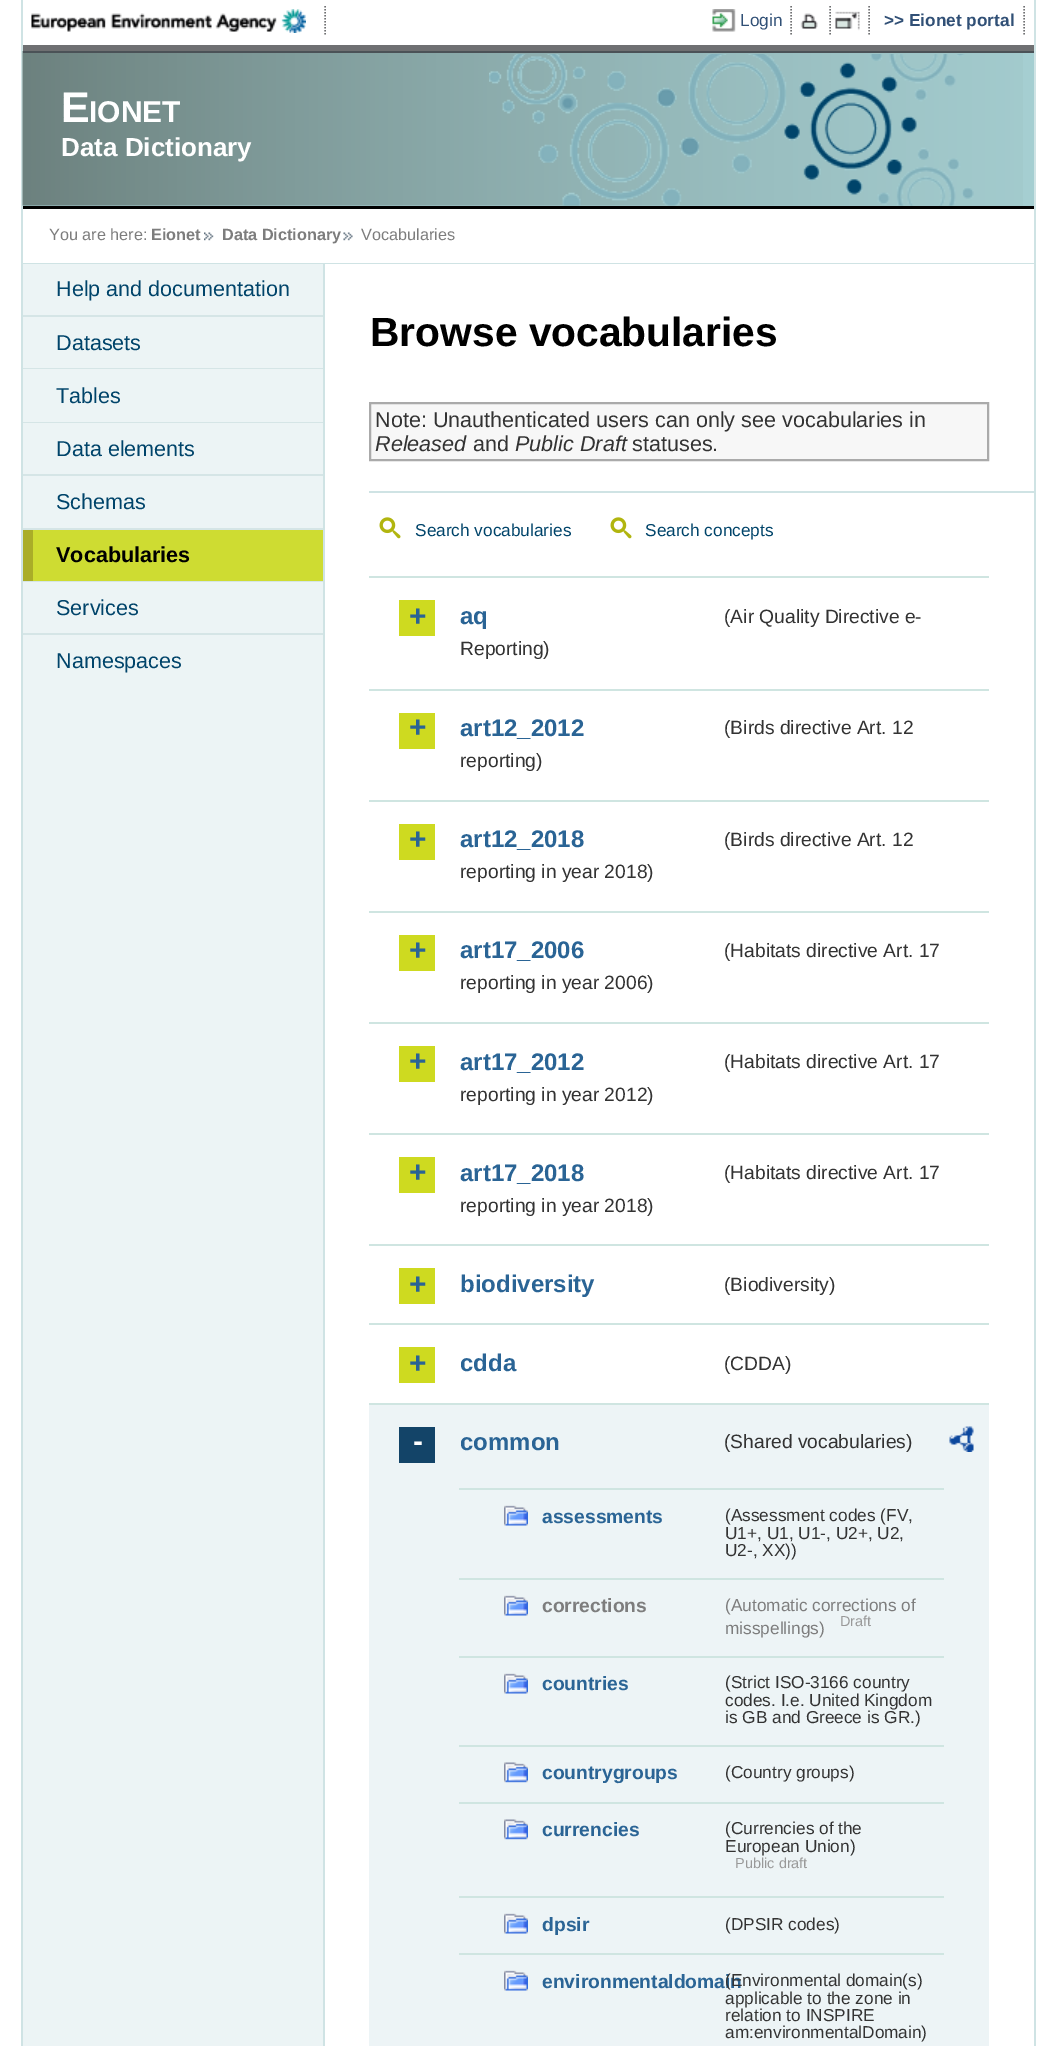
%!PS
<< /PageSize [1055 2046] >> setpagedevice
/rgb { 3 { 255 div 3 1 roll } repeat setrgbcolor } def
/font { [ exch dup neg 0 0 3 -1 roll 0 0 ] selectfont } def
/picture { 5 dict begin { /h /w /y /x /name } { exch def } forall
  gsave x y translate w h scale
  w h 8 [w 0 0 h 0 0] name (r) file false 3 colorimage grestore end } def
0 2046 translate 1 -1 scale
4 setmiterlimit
255 255 255 rgb
0 0 1055 2046 rectfill
[
  [23 317 300 1729 236 244 245]
  [1034 0 2 2046 207 227 228]
  [21 0 2 2046 207 227 228]
  [23 45 1011 6 111 112 114]
] { aload pop rgb rectfill } forall
(img/1.rgb) 31 9 275 24 picture
1.5 setlinewidth
[1.5 1.5] 0 setdash
325 6 moveto 325 36 lineto stroke
(img/2.rgb) 712 9 24 23 picture
791 6 moveto 791 36 lineto stroke
(img/3.rgb) 800 13 18 16 picture
830 6 moveto 830 36 lineto stroke
(img/4.rgb) 835 11 25 20 picture
869 6 moveto 869 36 lineto stroke
1024 6 moveto 1024 36 lineto stroke
165 206 209 rgb
23 53 1011 153 rectfill
(img/5.rgb) 22 51 1001 155 picture
75 82 87 rgb
23 51 1011 2 rectfill
(img/6.rgb) 489 54 485 152 picture
0 0 0 rgb
23 206 1011 3 rectfill
207 227 228 rgb
23 263 1011 1 rectfill
(img/7.rgb) 204 232 10 9 picture
(img/8.rgb) 343 232 10 9 picture
[
  [23 264 300 51 236 244 245]
  [23 315 300 2 213 229 230]
  [23 368 300 1 213 229 230]
  [23 422 300 1 213 229 230]
  [23 474 300 2 213 229 230]
  [23 528 300 2 213 229 230]
  [33 530 290 51 206 220 50]
  [23 530 10 51 170 173 40]
  [23 581 300 1 213 229 230]
  [23 633 300 2 213 229 230]
  [323 264 2 1782 207 227 228]
] { aload pop rgb rectfill } forall
247 247 247 rgb
370 403 moveto 988 403 lineto 988 460 lineto 370 460 lineto closepath gsave fill grestore
170 170 170 rgb
2 setlinewidth
[] 0 setdash
stroke
207 227 228 rgb
369 491 665 2 rectfill
(img/9.rgb) 379 517 22 22 picture
(img/9.rgb) 610 517 22 22 picture
[
  [369 576 620 2 207 229 225]
  [399 600 36 36 206 218 32]
  [369 689 620 2 207 229 225]
  [399 713 36 36 206 218 32]
  [369 800 620 2 207 229 225]
  [399 824 36 36 206 218 32]
  [369 911 620 2 207 229 225]
  [399 935 36 36 206 218 32]
  [369 1022 620 2 207 229 225]
  [399 1046 36 36 206 218 32]
  [369 1133 620 2 207 229 225]
  [399 1157 36 36 206 218 32]
  [369 1244 620 2 207 229 225]
  [399 1268 36 36 206 218 32]
  [369 1323 620 2 207 229 225]
  [399 1347 36 36 206 218 32]
  [369 1405 620 641 237 244 246]
  [369 1403 620 2 207 229 225]
  [399 1427 36 36 19 68 104]
] { aload pop rgb rectfill } forall
(img/10.rgb) 949 1426 25 26 picture
207 229 225 rgb
459 1488 485 2 rectfill
(img/11.rgb) 504 1505 24 21 picture
459 1578 485 2 rectfill
(img/11.rgb) 504 1595 24 21 picture
459 1656 485 2 rectfill
(img/11.rgb) 504 1673 24 21 picture
459 1745 485 2 rectfill
(img/12.rgb) 504 1762 24 21 picture
459 1802 485 2 rectfill
(img/12.rgb) 504 1819 24 21 picture
459 1896 485 2 rectfill
(img/11.rgb) 504 1913 24 21 picture
459 1953 485 2 rectfill
(img/11.rgb) 504 1970 24 21 picture
/LiberationSans-Regular 17.25 font
49 80 118 rgb
740 26 moveto (Login) show
/LiberationSans-Bold 17.25 font
884 26 moveto (>> Eionet portal) show
/LiberationSans-Bold 43 font
255 255 255 rgb
61 122 moveto (E) show
/LiberationSans-Bold 30 font
89 122 moveto (IONET) show
/LiberationSans-Bold 26 font
61 156 moveto (Data Dictionary) show
/LiberationSans-Regular 16.25 font
125 125 125 rgb
49 240 moveto (You are here:) show
/LiberationSans-Bold 16.25 font
151 240 moveto (Eionet) show
222 240 moveto (Data Dictionary) show
/LiberationSans-Regular 16.25 font
361 240 moveto (Vocabularies) show
/LiberationSans-Regular 21.6 font
0 68 106 rgb
[
  [(Help and documentation) 56 296]
  [(Datasets) 56 350]
  [(Tables) 56 403]
  [(Data elements) 56 456]
  [(Schemas) 56 509]
] { aload pop moveto show } forall
/LiberationSans-Bold 21.6 font
0 0 0 rgb
56 562 moveto (Vocabularies) show
/LiberationSans-Regular 21.6 font
0 68 106 rgb
56 615 moveto (Services) show
56 668 moveto (Namespaces) show
/LiberationSans-Bold 40.75 font
0 0 0 rgb
370 346 moveto (Browse vocabularies) show
/LiberationSans-Regular 21.6 font
51 51 51 rgb
375 427 moveto (Note: Unauthenticated users can only see vocabularies in) show
/LiberationSans-Italic 21.6 font
375 451 moveto (Released) show
/LiberationSans-Regular 21.6 font
473 451 moveto (and) show
/LiberationSans-Italic 21.6 font
515 451 moveto (Public Draft) show
/LiberationSans-Regular 21.6 font
632 451 moveto (statuses.) show
/LiberationSans-Regular 17.25 font
0 68 106 rgb
415 536 moveto (Search vocabularies) show
645 536 moveto (Search concepts) show
/LiberationSans-Bold 30 font
42 100 149 rgb
409 626 moveto (+) show
/LiberationSans-Bold 24 font
460 624 moveto (aq) show
/LiberationSans-Regular 19.25 font
51 51 51 rgb
724 623 moveto (\(Air Quality Directive e-) show
460 655 moveto (Reporting\)) show
/LiberationSans-Bold 30 font
42 100 149 rgb
409 737 moveto (+) show
/LiberationSans-Bold 24 font
460 736 moveto (art12_2012) show
/LiberationSans-Regular 19.25 font
51 51 51 rgb
724 734 moveto (\(Birds directive Art. 12) show
460 767 moveto (reporting\)) show
/LiberationSans-Bold 30 font
42 100 149 rgb
409 849 moveto (+) show
/LiberationSans-Bold 24 font
460 847 moveto (art12_2018) show
/LiberationSans-Regular 19.25 font
51 51 51 rgb
724 846 moveto (\(Birds directive Art. 12) show
460 878 moveto (reporting in year 2018\)) show
/LiberationSans-Bold 30 font
42 100 149 rgb
409 960 moveto (+) show
/LiberationSans-Bold 24 font
460 958 moveto (art17_2006) show
/LiberationSans-Regular 19.25 font
51 51 51 rgb
724 957 moveto (\(Habitats directive Art. 17) show
460 989 moveto (reporting in year 2006\)) show
/LiberationSans-Bold 30 font
42 100 149 rgb
409 1071 moveto (+) show
/LiberationSans-Bold 24 font
460 1070 moveto (art17_2012) show
/LiberationSans-Regular 19.25 font
51 51 51 rgb
724 1068 moveto (\(Habitats directive Art. 17) show
460 1101 moveto (reporting in year 2012\)) show
/LiberationSans-Bold 30 font
42 100 149 rgb
409 1182 moveto (+) show
/LiberationSans-Bold 24 font
460 1181 moveto (art17_2018) show
/LiberationSans-Regular 19.25 font
51 51 51 rgb
724 1179 moveto (\(Habitats directive Art. 17) show
460 1212 moveto (reporting in year 2018\)) show
/LiberationSans-Bold 30 font
42 100 149 rgb
409 1294 moveto (+) show
/LiberationSans-Bold 24 font
460 1292 moveto (biodiversity) show
/LiberationSans-Regular 19.25 font
51 51 51 rgb
724 1291 moveto (\(Biodiversity\)) show
/LiberationSans-Bold 30 font
42 100 149 rgb
409 1373 moveto (+) show
/LiberationSans-Bold 24 font
460 1371 moveto (cdda) show
/LiberationSans-Regular 19.25 font
51 51 51 rgb
724 1370 moveto (\(CDDA\)) show
/LiberationSans-Bold 30 font
255 255 255 rgb
413 1451 moveto (-) show
/LiberationSans-Bold 24 font
42 100 149 rgb
460 1450 moveto (common) show
/LiberationSans-Regular 19.25 font
51 51 51 rgb
724 1448 moveto (\(Shared vocabularies\)) show
/LiberationSans-Bold 19.25 font
42 100 149 rgb
542 1523 moveto (assessments) show
/LiberationSans-Regular 17.25 font
51 51 51 rgb
[
  [(\(Assessment codes \(FV,) 725 1521]
  [(U1+, U1, U1-, U2+, U2,) 725 1539]
  [(U2-, XX\)\)) 725 1556]
] { aload pop moveto show } forall
/LiberationSans-Bold 19.25 font
125 125 125 rgb
542 1612 moveto (corrections) show
/LiberationSans-Regular 17.25 font
725 1611 moveto (\(Automatic corrections of) show
725 1634 moveto (misspellings\)) show
/LiberationSans-Regular 14.5 font
153 153 153 rgb
840 1626 moveto (Draft) show
/LiberationSans-Bold 19.25 font
42 100 149 rgb
542 1690 moveto (countries) show
/LiberationSans-Regular 17.25 font
51 51 51 rgb
[
  [(\(Strict ISO-3166 country) 725 1688]
  [(codes. I.e. United Kingdom) 725 1706]
  [(is GB and Greece is GR.\)) 725 1723]
] { aload pop moveto show } forall
/LiberationSans-Bold 19.25 font
42 100 149 rgb
542 1779 moveto (countrygroups) show
/LiberationSans-Regular 17.25 font
51 51 51 rgb
725 1778 moveto (\(Country groups\)) show
/LiberationSans-Bold 19.25 font
42 100 149 rgb
542 1836 moveto (currencies) show
/LiberationSans-Regular 17.25 font
51 51 51 rgb
725 1834 moveto (\(Currencies of the) show
725 1852 moveto (European Union\)) show
/LiberationSans-Regular 14.5 font
153 153 153 rgb
735 1868 moveto (Public draft) show
/LiberationSans-Bold 19.25 font
42 100 149 rgb
542 1931 moveto (dpsir) show
/LiberationSans-Regular 17.25 font
51 51 51 rgb
725 1930 moveto (\(DPSIR codes\)) show
/LiberationSans-Bold 19.25 font
42 100 149 rgb
542 1988 moveto (environmentaldomain) show
/LiberationSans-Regular 17.25 font
51 51 51 rgb
[
  [(\(Environmental domain\(s\)) 725 1986]
  [(applicable to the zone in) 725 2004]
  [(relation to INSPIRE) 725 2021]
  [(am:environmentalDomain\)) 725 2038]
] { aload pop moveto show } forall
showpage
